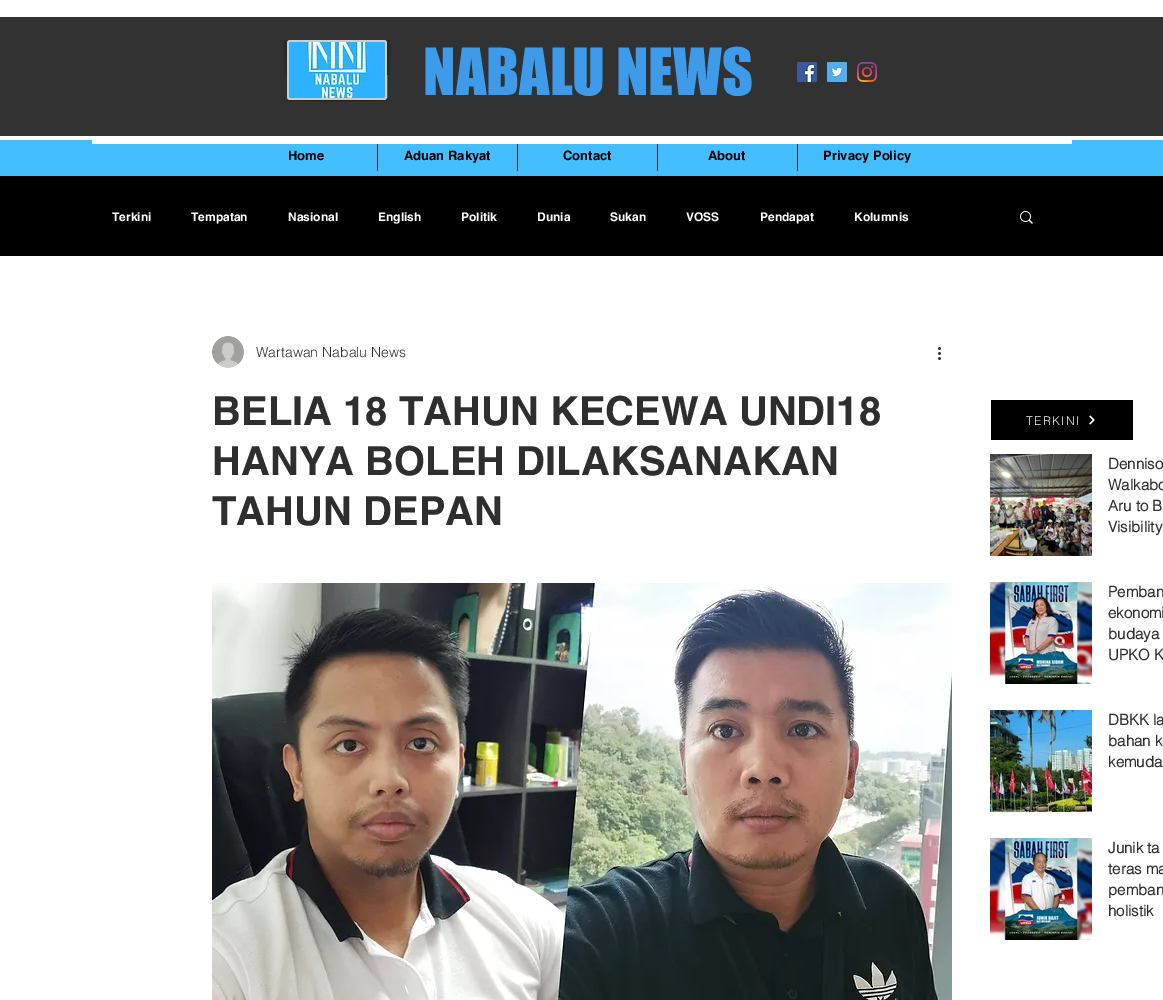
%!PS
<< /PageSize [1163 1000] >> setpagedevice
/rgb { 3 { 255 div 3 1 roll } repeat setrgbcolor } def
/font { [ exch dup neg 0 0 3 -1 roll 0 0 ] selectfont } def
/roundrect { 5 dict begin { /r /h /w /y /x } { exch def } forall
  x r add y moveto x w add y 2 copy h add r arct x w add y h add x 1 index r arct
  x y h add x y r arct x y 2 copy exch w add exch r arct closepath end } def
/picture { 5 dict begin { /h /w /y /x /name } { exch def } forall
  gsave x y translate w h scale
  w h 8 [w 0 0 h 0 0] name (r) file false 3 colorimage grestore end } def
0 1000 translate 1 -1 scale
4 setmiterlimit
255 255 255 rgb
0 0 1163 1000 rectfill
50 50 50 rgb
0 17 1163 119 rectfill
(img/1.rgb) 283 40 4 35 picture
205 205 205 rgb
288 41 98 58 2 roundrect gsave fill grestore
2 setlinewidth
stroke
(img/2.rgb) 289 42 96 56 picture
(img/3.rgb) 287 100 100 2 picture
(img/4.rgb) 387 40 4 35 picture
(img/5.rgb) 797 62 20 20 picture
(img/6.rgb) 827 62 20 20 picture
(img/7.rgb) 857 62 20 20 picture
[
  [0 140 1163 36 69 190 255]
  [377 140 1 31 47 46 46]
  [517 140 1 31 47 46 46]
  [657 140 1 31 47 46 46]
  [797 140 1 31 47 46 46]
  [92 140 980 4 255 255 255]
  [0 176 1163 80 0 0 0]
] { aload pop rgb rectfill } forall
(img/8.rgb) 1020 211 13 13 picture
(img/9.rgb) 212 336 32 32 picture
(img/10.rgb) 938 347 3 13 picture
(img/11.rgb) 212 583 740 417 picture
991 400 142 40 rectfill
(img/12.rgb) 1089 415 6 10 picture
(img/13.rgb) 990 454 102 102 picture
(img/14.rgb) 990 582 102 102 picture
(img/15.rgb) 990 710 102 102 picture
(img/16.rgb) 990 838 102 102 picture
/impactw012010-Regular 60 font
61 155 233 rgb
423 95 moveto (NABALU NEWS) show
/helvetica-Bold 13 font
0 0 0 rgb
[
  [(Home) 288 160]
  [(Aduan Rakyat) 404 160]
  [(Contact) 563 160]
  [(About) 708 160]
  [(Privacy Policy) 823 160]
] { aload pop moveto show } forall
/helvetica-Bold 12 font
255 255 255 rgb
[
  [(Terkini) 112 221]
  [(Tempatan) 191 221]
  [(Nasional) 288 221]
  [(English) 378 221]
  [(Politik) 461 221]
  [(Dunia) 537 221]
  [(Sukan) 610 221]
  [(VOSS) 686 221]
  [(Pendapat) 760 221]
  [(Kolumnis) 854 221]
] { aload pop moveto show } forall
/helvetica-Light 14 font
47 46 46 rgb
256 357 moveto (Wartawan Nabalu News) show
/helvetica-Bold 40 font
[
  [(BELIA 18 TAHUN KECEWA UNDI18) 212 425]
  [(HANYA BOLEH DILAKSANAKAN) 212 475]
  [(TAHUN DEPAN) 212 525]
] { aload pop moveto show } forall
/helvetica-Light 12 font
255 255 255 rgb
1026 425 moveto 1.25 0 (TERKINI) ashow
/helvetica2-Bold 15 font
47 46 46 rgb
[
  [(Denniso) 1108 469]
  [(Walkabo) 1108 490]
  [(Aru to B) 1108 511]
  [(Visibility) 1108 532]
  [(Pemban) 1108 597]
  [(ekonomi) 1108 618]
  [(budaya) 1108 639]
  [(UPKO K) 1108 660]
  [(DBKK la) 1108 725]
  [(bahan k) 1108 746]
  [(kemuda) 1108 767]
  [(Junik ta) 1108 853]
  [(teras ma) 1108 874]
  [(pemban) 1108 895]
  [(holistik) 1108 916]
] { aload pop moveto show } forall
showpage
